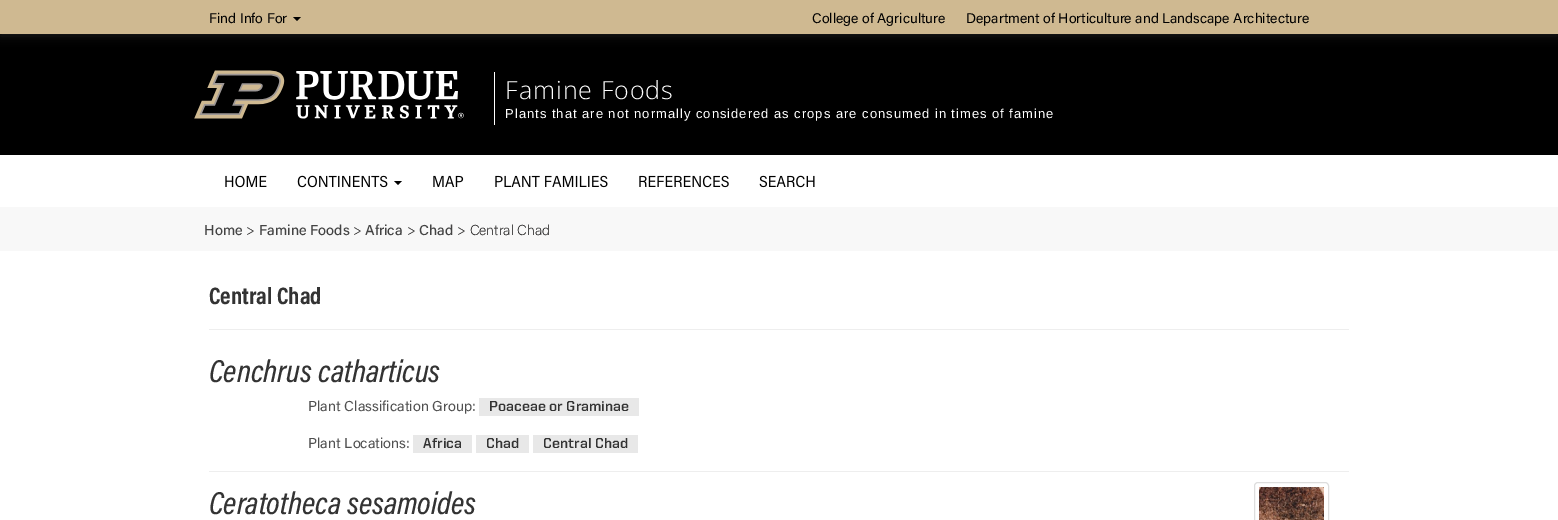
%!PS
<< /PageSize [1558 520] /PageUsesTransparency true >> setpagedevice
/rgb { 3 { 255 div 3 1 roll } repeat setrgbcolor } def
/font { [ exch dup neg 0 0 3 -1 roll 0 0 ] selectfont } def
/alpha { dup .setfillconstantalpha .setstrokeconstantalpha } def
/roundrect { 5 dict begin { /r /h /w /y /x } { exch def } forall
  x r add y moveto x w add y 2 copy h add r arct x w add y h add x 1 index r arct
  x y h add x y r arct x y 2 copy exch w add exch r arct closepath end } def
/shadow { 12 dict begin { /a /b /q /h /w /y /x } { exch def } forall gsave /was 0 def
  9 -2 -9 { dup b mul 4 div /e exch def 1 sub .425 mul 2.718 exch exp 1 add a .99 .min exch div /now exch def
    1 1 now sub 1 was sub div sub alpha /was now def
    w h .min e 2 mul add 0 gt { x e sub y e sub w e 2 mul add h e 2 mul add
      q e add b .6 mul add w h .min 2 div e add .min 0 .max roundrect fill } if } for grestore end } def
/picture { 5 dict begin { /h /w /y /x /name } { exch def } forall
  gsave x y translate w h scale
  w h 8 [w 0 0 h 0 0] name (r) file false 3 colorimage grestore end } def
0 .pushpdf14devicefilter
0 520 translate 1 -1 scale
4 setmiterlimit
255 255 255 rgb
0 0 1558 520 rectfill
0 0 0 rgb
0 34 1558 121 rectfill
30 30 30 rgb
0 2 1558 34 0 5 1 shadow
207 185 145 rgb
0 0 1558 34 rectfill
0 0 0 rgb
293 17 moveto 301 17 lineto 297 21 lineto closepath fill
(img/1.rgb) 194 70 270 49 picture
255 255 255 rgb
494 72 1 53 rectfill
(img/2.rgb) 225 175 42 13 picture
(img/3.rgb) 297 175 91 13 picture
0 0 0 rgb
394 181 moveto 402 181 lineto 398 185 lineto closepath fill
(img/4.rgb) 433 175 31 12 picture
(img/5.rgb) 495 175 113 13 picture
(img/6.rgb) 639 175 90 13 picture
(img/7.rgb) 759 175 56 13 picture
[
  [0 207 1558 44 248 248 248]
  [209 329 1140 1 238 238 238]
  [479 398 160 18 232 232 232]
  [413 435 59 18 232 232 232]
  [476 435 53 18 232 232 232]
  [533 435 105 18 232 232 232]
  [209 471 1140 1 238 238 238]
] { aload pop rgb rectfill } forall
221 221 221 rgb
1254.5 482.5 74 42 3.5 roundrect stroke
(img/8.rgb) 1259 487 65 33 picture
/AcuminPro-Regular 14 font
0 0 0 rgb
[
  [(Find Info For) 209 23]
  [(College of Agriculture) 812 23]
  [(Department of Horticulture and Landscape Architecture) 966 23]
] { aload pop moveto show } forall
/OpenSans-Light 25 font
255 255 255 rgb
505 99 moveto 1 0 (Famine Foods) ashow
/LiberationSans-Regular 13 font
505 118 moveto 1 0 (Plants that are not normally considered as crops are consumed in times of famine) ashow
/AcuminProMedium-Medium 14.4 font
68 68 68 rgb
204 235 moveto (Home) show
/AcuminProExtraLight-ExtraLight 14.4 font
19 18 18 rgb
246 235 moveto (>) show
/AcuminProMedium-Medium 14.4 font
68 68 68 rgb
259 235 moveto (Famine Foods) show
/AcuminProExtraLight-ExtraLight 14.4 font
19 18 18 rgb
353 235 moveto (>) show
/AcuminProMedium-Medium 14.4 font
68 68 68 rgb
365 235 moveto (Africa) show
/AcuminProExtraLight-ExtraLight 14.4 font
19 18 18 rgb
407 235 moveto (>) show
/AcuminProMedium-Medium 14.4 font
68 68 68 rgb
419 235 moveto (Chad) show
/AcuminProExtraLight-ExtraLight 14.4 font
19 18 18 rgb
457 235 moveto (> Central Chad) show
/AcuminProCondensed-Bold 24 font
51 51 51 rgb
209 304 moveto (Central Chad) show
/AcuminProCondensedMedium-MediumItalic 32 font
209 382 moveto (Cenchrus catharticus) show
/AcuminPro-Regular 14.4 font
80 80 80 rgb
308 411 moveto (Plant Classification Group:) show
/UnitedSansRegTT-Bold 14.4 font
51 51 51 rgb
489 411 moveto (Poaceae or Graminae) show
/AcuminPro-Regular 14.4 font
80 80 80 rgb
308 448 moveto (Plant Locations:) show
/UnitedSansRegTT-Bold 14.4 font
51 51 51 rgb
[
  [(Africa) 423 448]
  [(Chad) 486 448]
  [(Central Chad) 543 448]
] { aload pop moveto show } forall
/AcuminProCondensedMedium-MediumItalic 32 font
209 514 moveto (Ceratotheca sesamoides) show
.poppdf14devicefilter showpage
